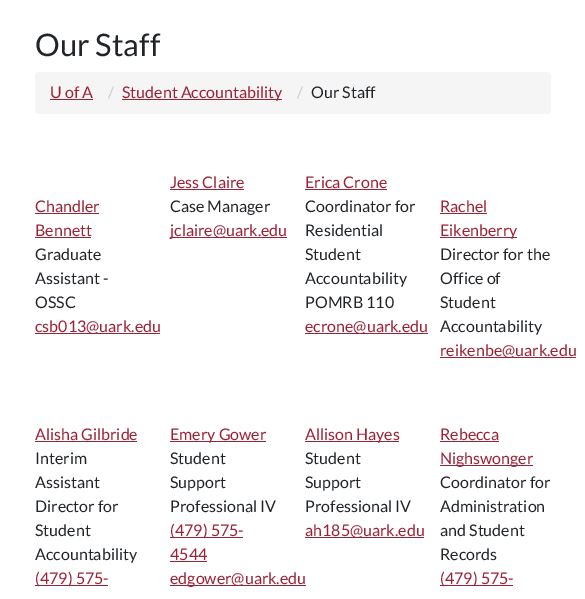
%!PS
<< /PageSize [585 599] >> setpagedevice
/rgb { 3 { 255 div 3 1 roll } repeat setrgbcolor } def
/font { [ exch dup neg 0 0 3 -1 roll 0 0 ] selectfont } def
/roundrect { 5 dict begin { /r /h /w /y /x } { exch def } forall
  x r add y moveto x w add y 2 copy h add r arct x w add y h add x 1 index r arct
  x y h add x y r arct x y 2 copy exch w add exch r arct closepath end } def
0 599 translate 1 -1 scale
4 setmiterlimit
255 255 255 rgb
0 0 585 599 rectfill
245 245 245 rgb
35 72 516 42 4 roundrect fill
[
  [50 99 43 1 157 34 53]
  [122 99 160 1 157 34 53]
  [35 213 64 1 157 34 53]
  [35 237 56 1 157 34 53]
  [35 333 125 1 157 34 53]
  [170 189 74 1 157 34 53]
  [170 237 117 1 157 34 53]
  [305 189 82 1 157 34 53]
  [305 333 123 1 157 34 53]
  [440 213 47 1 157 34 53]
  [440 237 77 1 157 34 53]
  [440 357 136 1 157 34 53]
  [35 441 102 1 157 34 53]
  [35 585 73 1 157 34 53]
  [170 441 96 1 157 34 53]
  [170 537 73 1 157 34 53]
  [170 561 37 1 157 34 53]
  [170 585 136 1 157 34 53]
  [305 441 94 1 157 34 53]
  [305 537 119 1 157 34 53]
  [440 441 59 1 157 34 53]
  [440 465 93 1 157 34 53]
  [440 585 73 1 157 34 53]
] { aload pop rgb rectfill } forall
/Lato-Regular 31 font
33 37 41 rgb
35 56 moveto (Our Staff) show
/Lato-Regular 16 font
157 34 53 rgb
50 98 moveto (U of A) show
204 204 204 rgb
108 98 moveto (/) show
157 34 53 rgb
122 98 moveto (Student Accountability) show
204 204 204 rgb
297 98 moveto (/) show
33 37 41 rgb
311 98 moveto (Our Staff) show
157 34 53 rgb
35 212 moveto (Chandler) show
35 236 moveto (Bennett) show
33 37 41 rgb
[
  [(Graduate) 35 260]
  [(Assistant -) 35 284]
  [(OSSC) 35 308]
] { aload pop moveto show } forall
157 34 53 rgb
35 332 moveto (csb013@uark.edu) show
170 188 moveto (Jess Claire) show
33 37 41 rgb
170 212 moveto (Case Manager) show
157 34 53 rgb
170 236 moveto (jclaire@uark.edu) show
305 188 moveto (Erica Crone) show
33 37 41 rgb
[
  [(Coordinator for) 305 212]
  [(Residential) 305 236]
  [(Student) 305 260]
  [(Accountability) 305 284]
  [(POMRB 110) 305 308]
] { aload pop moveto show } forall
157 34 53 rgb
[
  [(ecrone@uark.edu) 305 332]
  [(Rachel) 440 212]
  [(Eikenberry) 440 236]
] { aload pop moveto show } forall
33 37 41 rgb
[
  [(Director for the) 440 260]
  [(Office of) 440 284]
  [(Student) 440 308]
  [(Accountability) 440 332]
] { aload pop moveto show } forall
157 34 53 rgb
440 356 moveto (reikenbe@uark.edu) show
35 440 moveto (Alisha Gilbride) show
33 37 41 rgb
[
  [(Interim) 35 464]
  [(Assistant) 35 488]
  [(Director for) 35 512]
  [(Student) 35 536]
  [(Accountability) 35 560]
] { aload pop moveto show } forall
157 34 53 rgb
35 584 moveto (\(479\) 575-) show
170 440 moveto (Emery Gower) show
33 37 41 rgb
[
  [(Student) 170 464]
  [(Support) 170 488]
  [(Professional IV) 170 512]
] { aload pop moveto show } forall
157 34 53 rgb
[
  [(\(479\) 575-) 170 536]
  [(4544) 170 560]
  [(edgower@uark.edu) 170 584]
  [(Allison Hayes) 305 440]
] { aload pop moveto show } forall
33 37 41 rgb
[
  [(Student) 305 464]
  [(Support) 305 488]
  [(Professional IV) 305 512]
] { aload pop moveto show } forall
157 34 53 rgb
[
  [(ah185@uark.edu) 305 536]
  [(Rebecca) 440 440]
  [(Nighswonger) 440 464]
] { aload pop moveto show } forall
33 37 41 rgb
[
  [(Coordinator for) 440 488]
  [(Administration) 440 512]
  [(and Student) 440 536]
  [(Records) 440 560]
] { aload pop moveto show } forall
157 34 53 rgb
440 584 moveto (\(479\) 575-) show
showpage
